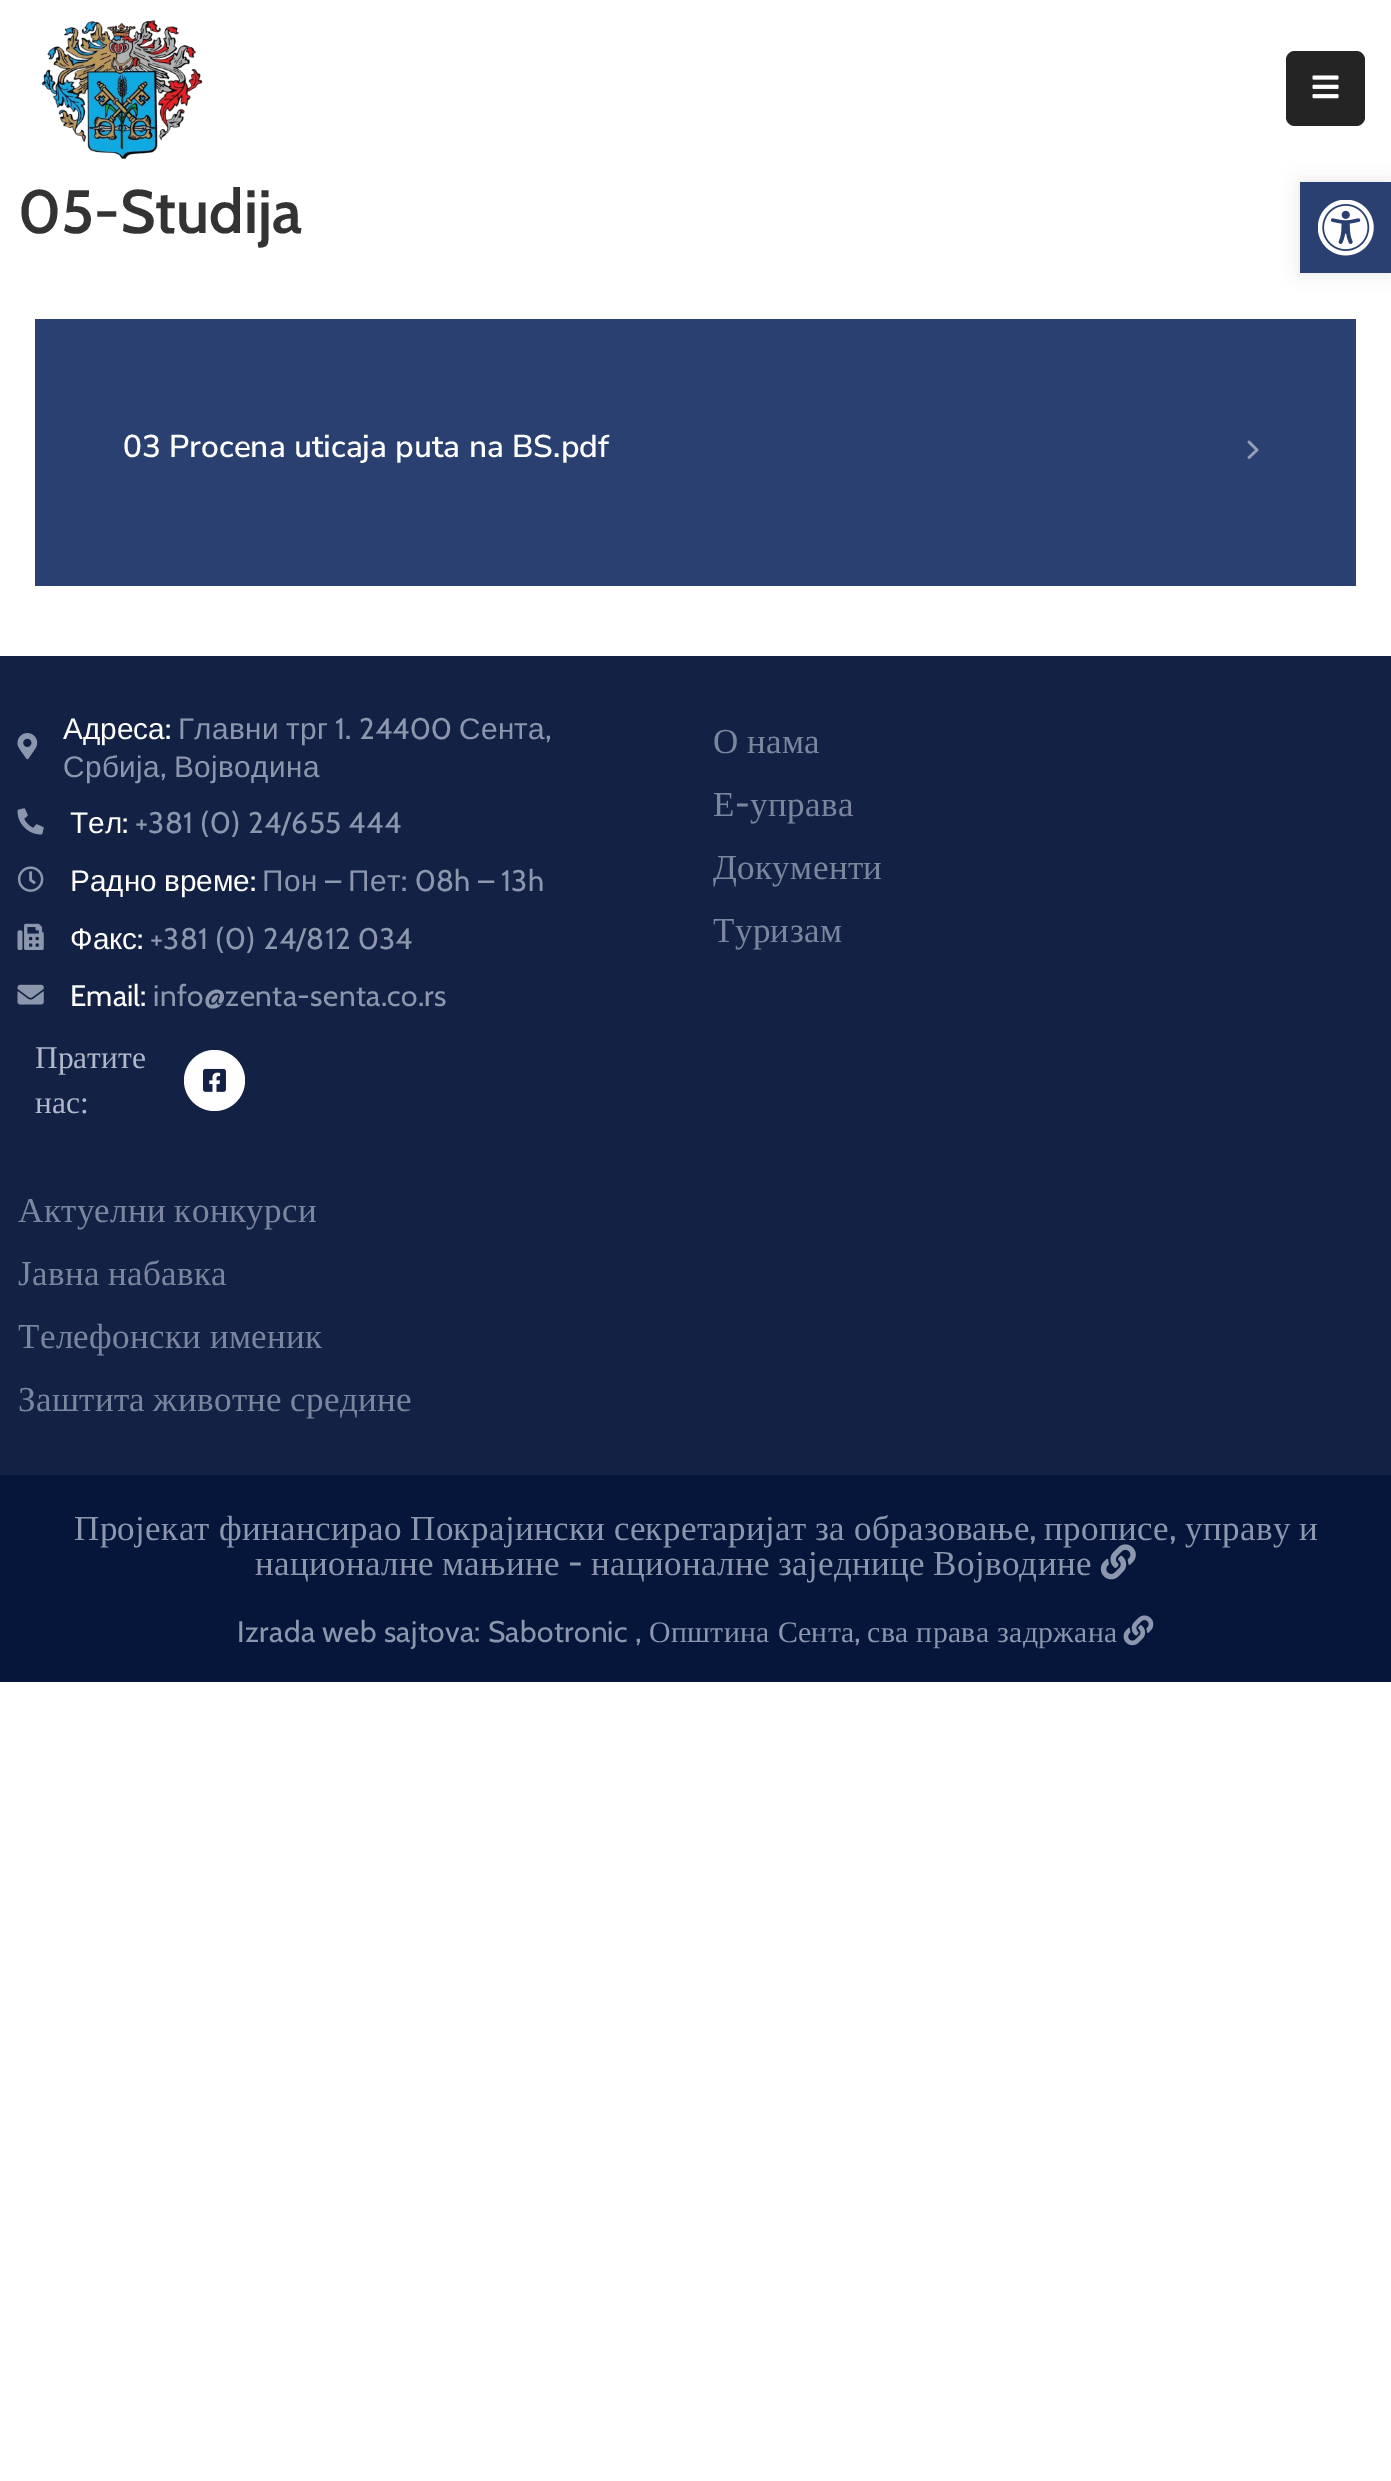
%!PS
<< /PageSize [1391 2481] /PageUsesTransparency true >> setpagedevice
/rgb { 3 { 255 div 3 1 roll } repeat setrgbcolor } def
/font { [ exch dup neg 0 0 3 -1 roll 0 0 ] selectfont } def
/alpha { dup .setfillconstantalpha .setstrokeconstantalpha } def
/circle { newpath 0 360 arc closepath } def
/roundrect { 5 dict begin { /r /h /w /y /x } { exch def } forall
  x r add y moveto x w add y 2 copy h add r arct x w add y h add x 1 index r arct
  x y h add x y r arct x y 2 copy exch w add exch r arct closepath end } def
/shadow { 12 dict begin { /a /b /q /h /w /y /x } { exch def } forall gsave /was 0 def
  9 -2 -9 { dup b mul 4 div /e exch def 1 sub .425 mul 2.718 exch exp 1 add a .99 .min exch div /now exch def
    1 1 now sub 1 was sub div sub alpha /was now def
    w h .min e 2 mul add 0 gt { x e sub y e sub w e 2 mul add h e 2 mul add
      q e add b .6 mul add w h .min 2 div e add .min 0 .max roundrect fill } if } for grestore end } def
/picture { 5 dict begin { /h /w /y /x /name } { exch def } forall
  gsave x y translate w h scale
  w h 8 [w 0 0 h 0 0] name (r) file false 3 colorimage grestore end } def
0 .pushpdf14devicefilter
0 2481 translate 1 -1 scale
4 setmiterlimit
255 255 255 rgb
0 0 1391 2481 rectfill
(img/1.rgb) 42 20 161 139 picture
36 36 36 rgb
1286 51 79 75 9 roundrect fill
(img/2.rgb) 1312 75 27 24 picture
42 64 113 rgb
35 319 1321 267 rectfill
149 160 184 rgb
2.6 setlinewidth
1 setlinecap
1 setlinejoin
1249 457.5 moveto 1257 450 lineto 1249 442 lineto stroke
19 34 68 rgb
0 656 1391 819 rectfill
(img/3.rgb) 17 733 21 27 picture
(img/4.rgb) 17 808 27 27 picture
(img/5.rgb) 17 866 27 26 picture
(img/6.rgb) 17 923 27 27 picture
(img/7.rgb) 17 984 27 21 picture
255 255 255 rgb
214.5 1080.5 30.5 circle fill
(img/8.rgb) 203 1068 23 24 picture
6 22 58 rgb
0 1475 1391 207 rectfill
(img/10.rgb) 1123 1615 31 31 picture
0 0 0 rgb
1300 182 91 91 0 9 0.1 shadow
42 64 113 rgb
1300 182 91 91 rectfill
(img/11.rgb) 1318 200 56 56 picture
/Cabin-SemiBold 61.25 font
51 51 51 rgb
18 233 moveto (05-Studija) show
/NunitoSans-SemiBold 31.5 font
255 255 255 rgb
123 457 moveto (03 Procena uticaja puta na BS.pdf) show
/LiberationSans-Regular 29.75 font
63 739 moveto (Адреса) show
/Cabin-Regular 29.75 font
165 739 moveto (:) show
/LiberationSans-Regular 29.75 font
140 150 172 rgb
178 739 moveto 0.35 0 (Главни) ashow
286 739 moveto 0.35 0 (трг) ashow
/Cabin-Regular 29.75 font
335 739 moveto 0.35 0 (1. 24400) ashow
/LiberationSans-Regular 29.75 font
459 739 moveto 0.35 0 (Сента) ashow
/Cabin-Regular 29.75 font
545 739 moveto 0.35 0 (,) ashow
/LiberationSans-Regular 29.75 font
63 777 moveto 0.35 0 (Србија) ashow
/Cabin-Regular 29.75 font
160 777 moveto 0.35 0 (,) ashow
/LiberationSans-Regular 29.75 font
174 777 moveto 0.35 0 (Војводина) ashow
255 255 255 rgb
70 833 moveto (Тел) show
/Cabin-Regular 29.75 font
122 833 moveto (:) show
140 150 172 rgb
135 833 moveto 0.35 0 (+381 \(0\) 24/655 444) ashow
/LiberationSans-Regular 29.75 font
255 255 255 rgb
70 891 moveto -1 0 32 (Радно време) widthshow
/Cabin-Regular 29.75 font
250 891 moveto (:) show
/LiberationSans-Regular 29.75 font
140 150 172 rgb
262 891 moveto 0.35 0 (Пон) ashow
/Cabin-Regular 29.75 font
325 891 moveto 0.35 0 (–) ashow
/LiberationSans-Regular 29.75 font
348 891 moveto 0.35 0 (Пет) ashow
/Cabin-Regular 29.75 font
401 891 moveto 0.35 0 (: 08h – 13h) ashow
/LiberationSans-Regular 29.75 font
255 255 255 rgb
70 949 moveto (Факс) show
/Cabin-Regular 29.75 font
137 949 moveto (:) show
140 150 172 rgb
150 949 moveto 0.35 0 (+381 \(0\) 24/812 034) ashow
255 255 255 rgb
70 1006 moveto (Email:) show
140 150 172 rgb
153 1006 moveto 0.35 0 (info@zenta-senta.co.rs) ashow
/LiberationSerif-Regular 31.5 font
176 184 202 rgb
35 1068 moveto (Пратите) show
35 1113 moveto (нас:) show
/LiberationSerif-Regular 35 font
123 133 157 rgb
713 753 moveto -1 0 32 0.35 0 (О нама) awidthshow
713 816 moveto 0.35 0 (Е) ashow
/Cabin-Regular 35 font
735 816 moveto 0.35 0 (-) ashow
/LiberationSerif-Regular 35 font
750 816 moveto 0.35 0 (управа) ashow
713 879 moveto 0.35 0 (Документи) ashow
713 942 moveto 0.35 0 (Туризам) ashow
18 1222 moveto -1 0 32 0.35 0 (Актуелни конкурси) awidthshow
18 1285 moveto -1 0 32 0.35 0 (Јавна набавка) awidthshow
18 1348 moveto -1 0 32 0.35 0 (Телефонски именик) awidthshow
18 1411 moveto -1 0 32 0.35 0 (Заштита животне средине) awidthshow
140 150 172 rgb
74 1540 moveto -0.5 0 32 0.35 0 (Пројекат финансирао Покрајински секретаријат за образовање) awidthshow
/Cabin-Regular 35 font
1029 1540 moveto 0.35 0 (,) ashow
/LiberationSerif-Regular 35 font
1044 1540 moveto 0.35 0 (прописе) ashow
/Cabin-Regular 35 font
1169 1540 moveto 0.35 0 (,) ashow
/LiberationSerif-Regular 35 font
1185 1540 moveto -0.5 0 32 0.35 0 (управу и) awidthshow
255 1575 moveto -1 0 32 0.35 0 (националне мањине) awidthshow
/Cabin-Regular 35 font
568 1575 moveto 0.35 0 (-) ashow
/LiberationSerif-Regular 35 font
591 1575 moveto -1 0 32 0.35 0 (националне заједнице Војводине) awidthshow
(img/9.rgb) 1100 1544 36 36 picture
/Cabin-Regular 29.75 font
237 1642 moveto 0.35 0 (Izrada web sajtova: Sabotronic ,) ashow
/LiberationSerif-Regular 29.75 font
649 1642 moveto 0.35 0 (Општина Сента) ashow
/Cabin-Regular 29.75 font
854 1642 moveto 0.35 0 (,) ashow
/LiberationSerif-Regular 29.75 font
867 1642 moveto 0.35 0 (сва права задржана) ashow
.poppdf14devicefilter showpage
